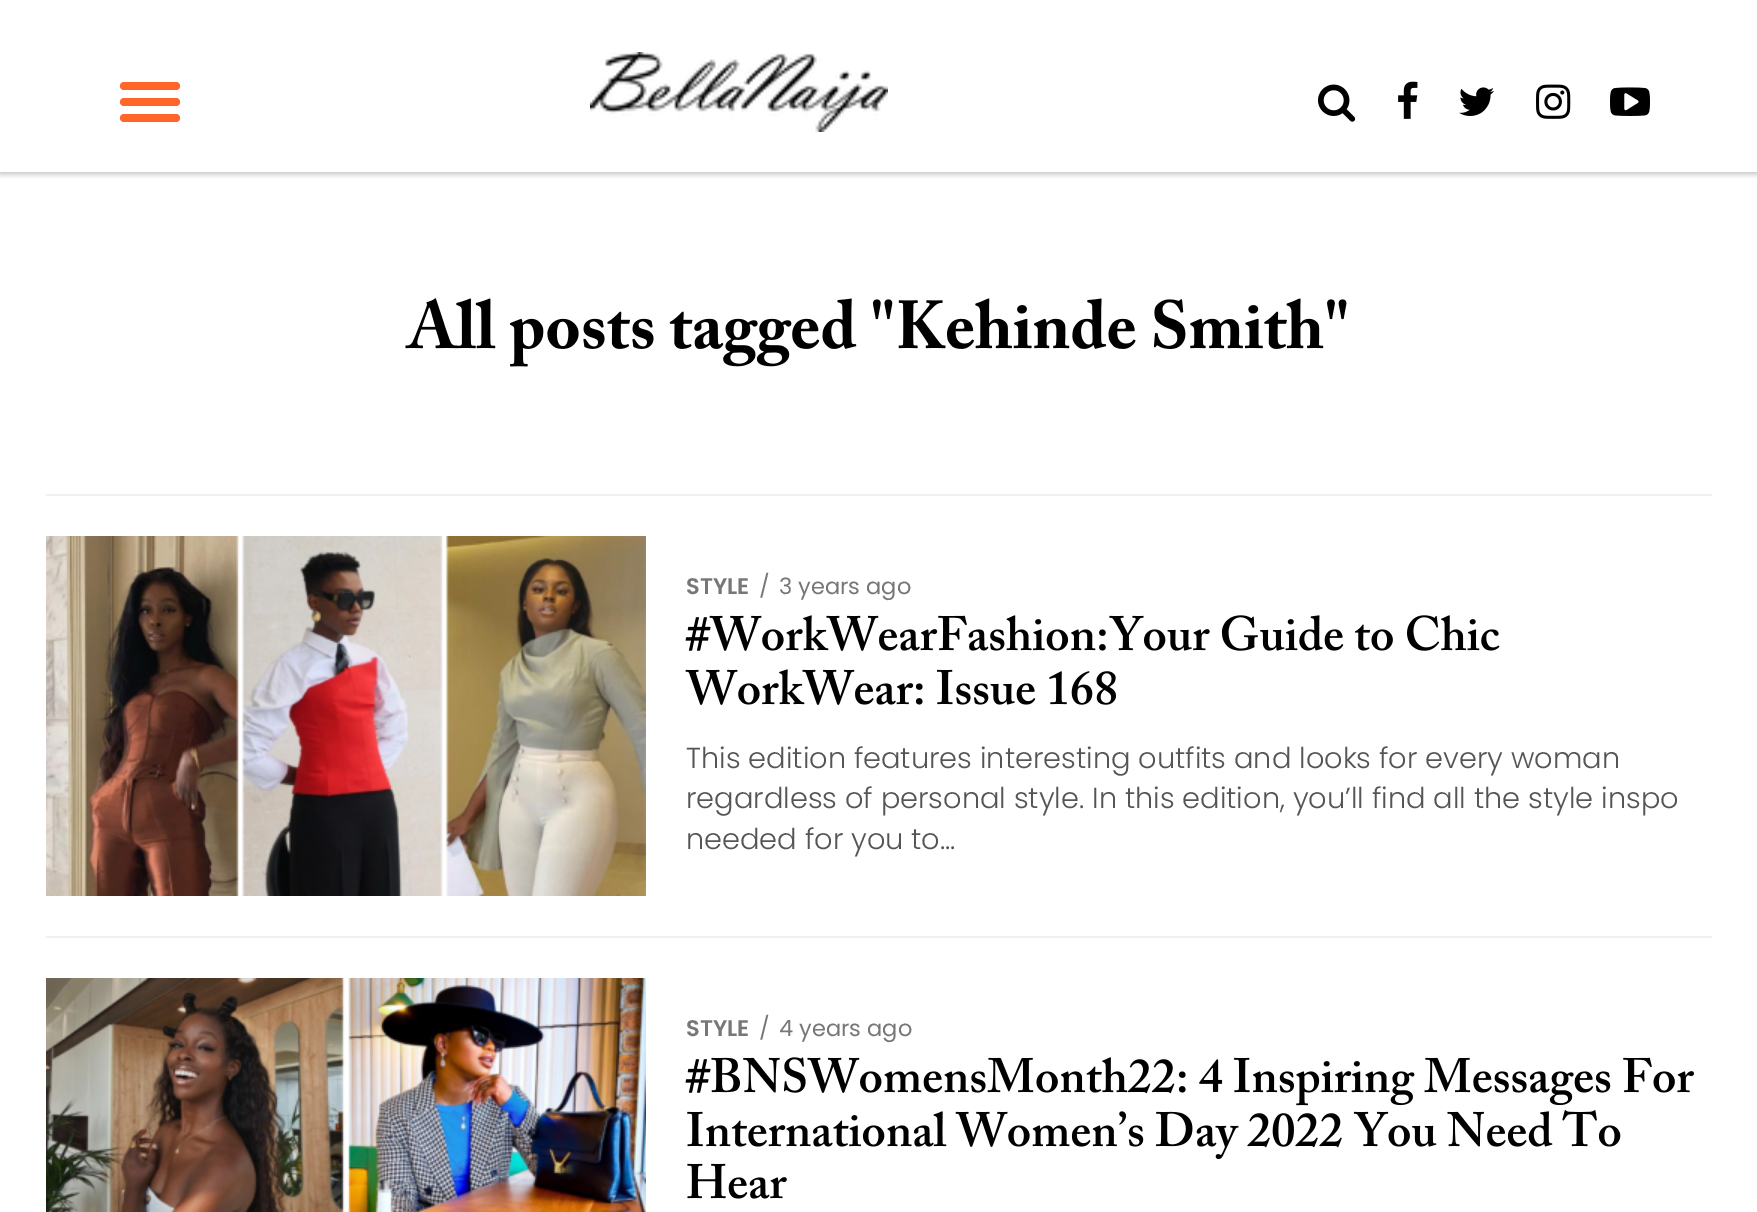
%!PS
<< /PageSize [1757 1212] /PageUsesTransparency true >> setpagedevice
/rgb { 3 { 255 div 3 1 roll } repeat setrgbcolor } def
/font { [ exch dup neg 0 0 3 -1 roll 0 0 ] selectfont } def
/alpha { dup .setfillconstantalpha .setstrokeconstantalpha } def
/roundrect { 5 dict begin { /r /h /w /y /x } { exch def } forall
  x r add y moveto x w add y 2 copy h add r arct x w add y h add x 1 index r arct
  x y h add x y r arct x y 2 copy exch w add exch r arct closepath end } def
/shadow { 12 dict begin { /a /b /q /h /w /y /x } { exch def } forall gsave /was 0 def
  9 -2 -9 { dup b mul 4 div /e exch def 1 sub .425 mul 2.718 exch exp 1 add a .99 .min exch div /now exch def
    1 1 now sub 1 was sub div sub alpha /was now def
    w h .min e 2 mul add 0 gt { x e sub y e sub w e 2 mul add h e 2 mul add
      q e add b .6 mul add w h .min 2 div e add .min 0 .max roundrect fill } if } for grestore end } def
/picture { 5 dict begin { /h /w /y /x /name } { exch def } forall
  gsave x y translate w h scale
  w h 8 [w 0 0 h 0 0] name (r) file false 3 colorimage grestore end } def
0 .pushpdf14devicefilter
0 1212 translate 1 -1 scale
4 setmiterlimit
255 255 255 rgb
0 0 1757 1212 rectfill
gsave
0 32 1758 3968 rectclip
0 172 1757 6 rectclip
0 0 0 rgb
0 34 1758 140 0 3 0.25 shadow
grestore
255 103 40 rgb
120 82 60 8 4 roundrect fill
120 98 60 8 4 roundrect fill
120 114 60 8 4 roundrect fill
(img/1.rgb) 590 52 298 80 picture
(img/2.rgb) 1318 84 38 38 picture
(img/3.rgb) 1398 81 20 38 picture
(img/4.rgb) 1459 87 35 29 picture
(img/5.rgb) 1536 84 35 35 picture
(img/6.rgb) 1610 87 40 29 picture
(img/7.rgb) 405 298 452 69 picture
(img/8.rgb) 872 298 475 51 picture
240 240 240 rgb
46 494 1666 2 rectfill
(img/9.rgb) 46 536 600 360 picture
(img/10.rgb) 685 615 815 36 picture
(img/11.rgb) 685 669 431 36 picture
46 936 1666 2 rectfill
(img/12.rgb) 46 978 600 234 picture
(img/13.rgb) 685 1057 1009 49 picture
(img/14.rgb) 687 1110 934 50 picture
(img/15.rgb) 687 1163 100 36 picture
/Poppins-SemiBold 22.5 font
119 119 119 rgb
686 594 moveto (STYLE) show
/Poppins-Regular 22.5 font
759 594 moveto (/) show
779 594 moveto (3 years ago) show
/Poppins-Light 28.8 font
85 85 85 rgb
[
  [(This edition features interesting outfits and looks for every woman) 686 768]
  [(regardless of personal style. In this edition, you’ll find all the style inspo) 686 808]
  [(needed for you to...) 686 849]
] { aload pop moveto show } forall
/Poppins-SemiBold 22.5 font
119 119 119 rgb
686 1036 moveto (STYLE) show
/Poppins-Regular 22.5 font
759 1036 moveto (/) show
779 1036 moveto (4 years ago) show
.poppdf14devicefilter showpage
